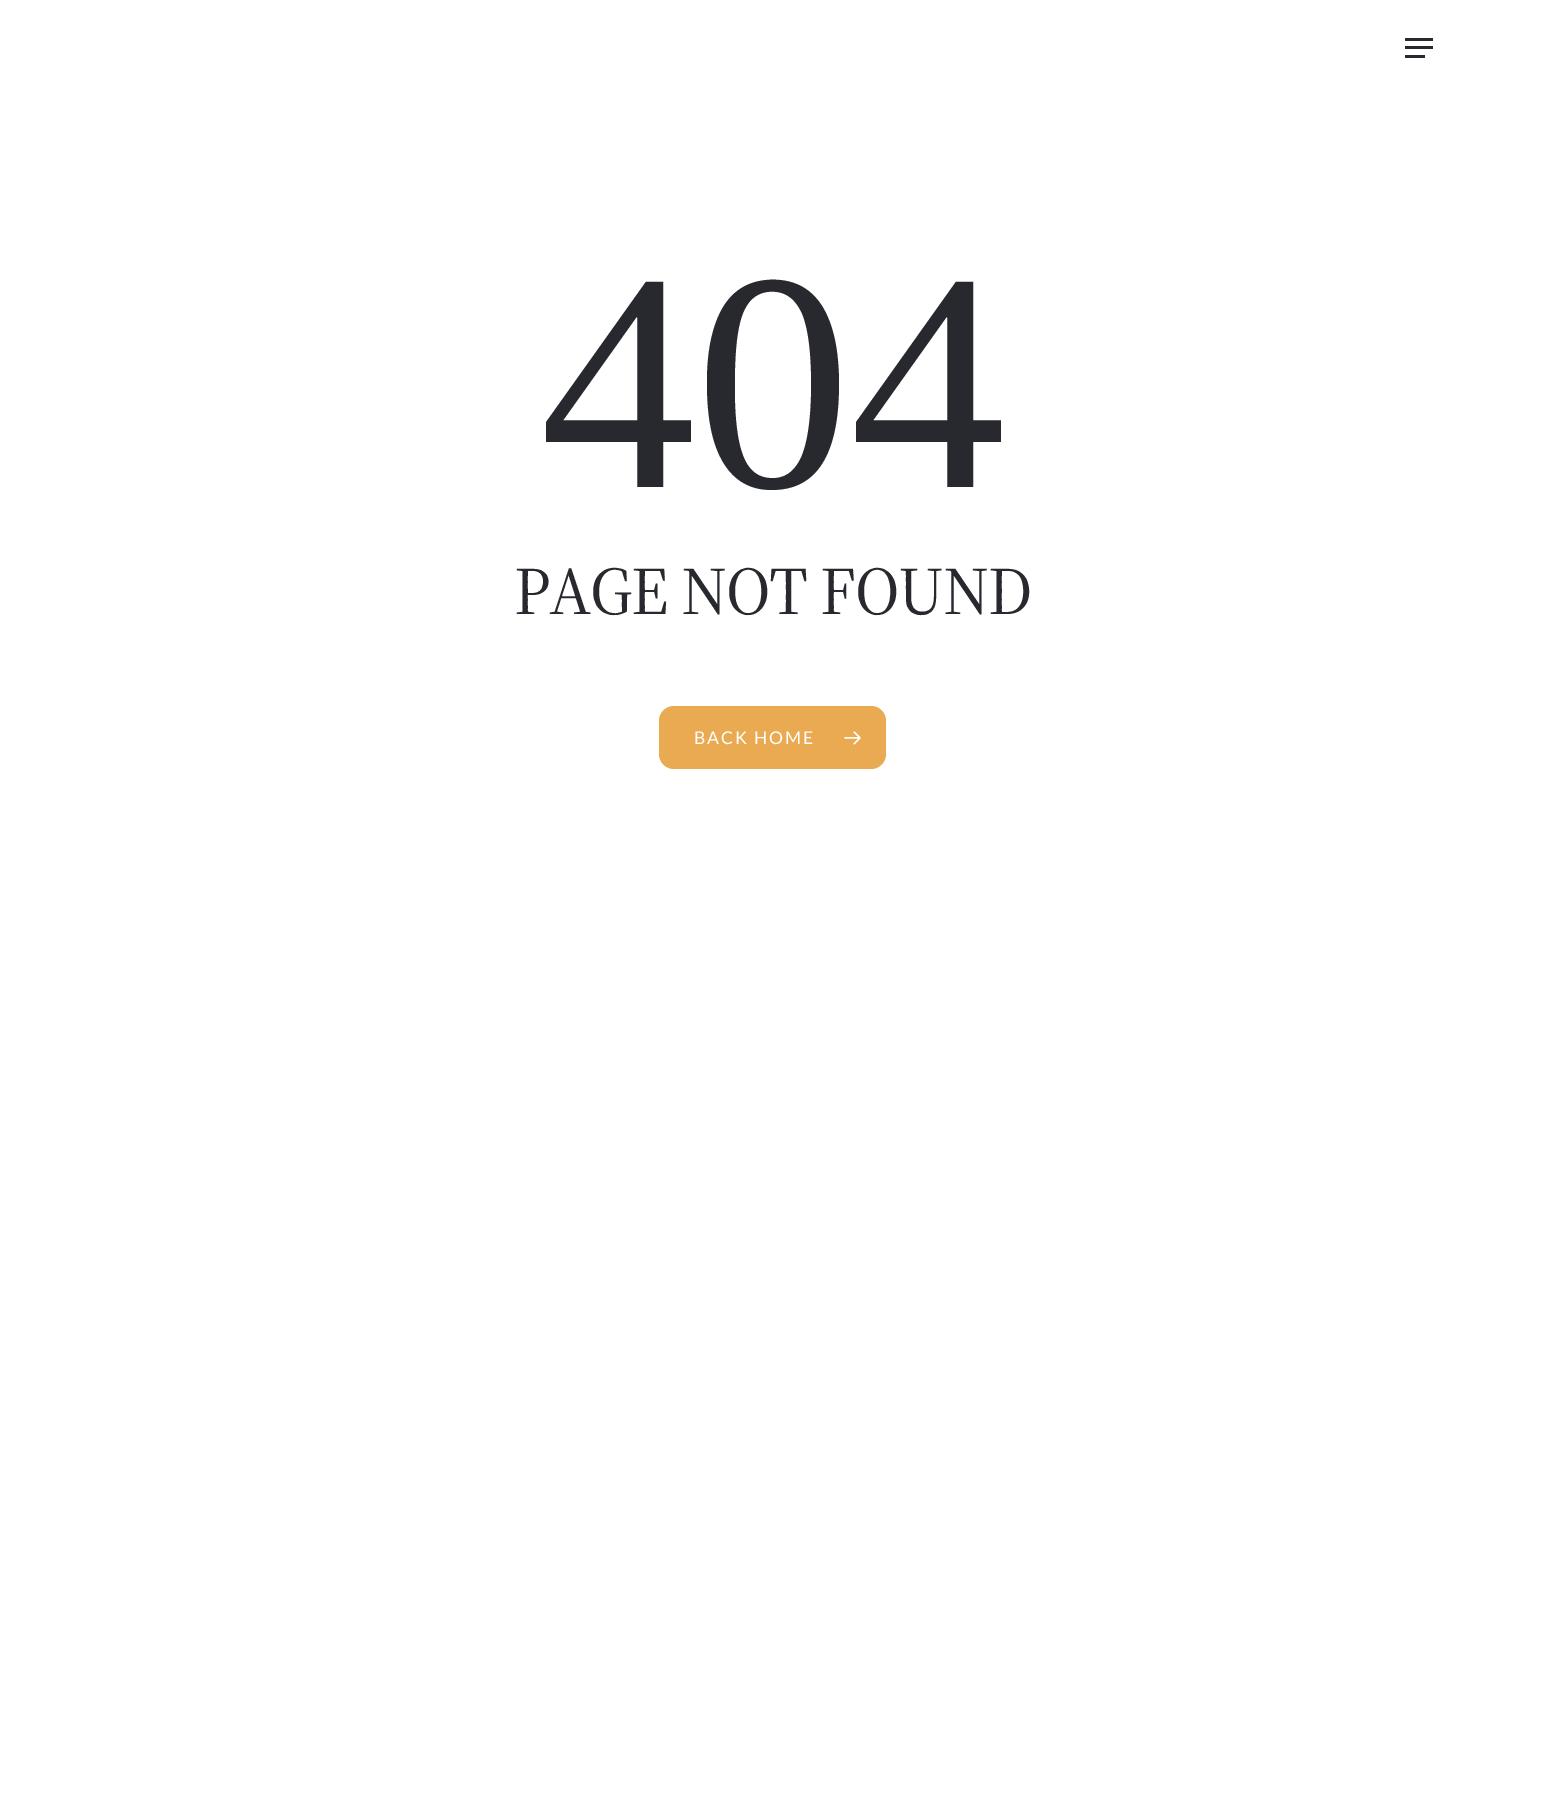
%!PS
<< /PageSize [1544 1796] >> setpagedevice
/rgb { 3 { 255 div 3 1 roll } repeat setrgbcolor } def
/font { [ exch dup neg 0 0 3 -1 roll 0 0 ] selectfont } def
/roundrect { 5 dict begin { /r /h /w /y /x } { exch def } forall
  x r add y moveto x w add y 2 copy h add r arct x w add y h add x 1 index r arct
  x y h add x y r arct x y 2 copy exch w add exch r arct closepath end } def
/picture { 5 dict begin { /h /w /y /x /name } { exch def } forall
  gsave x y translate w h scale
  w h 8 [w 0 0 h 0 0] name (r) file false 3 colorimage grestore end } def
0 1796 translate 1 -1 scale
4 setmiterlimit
255 255 255 rgb
0 0 1544 1796 rectfill
[
  [1405 38 28 3 39 41 47]
  [1405 55 20 3 39 41 47]
  [1405 46 28 3 39 41 47]
] { aload pop rgb rectfill } forall
234 170 82 rgb
659 706 227 63 15 roundrect fill
(img/1.rgb) 844 731 17 14 picture
/LiberationSerif-Regular 312 font
39 41 47 rgb
540 487 moveto -1.25 0 (404) ashow
/SourceSerif4-Regular 67.5 font
514 614 moveto -1.25 0 (PAGE NOT FOUND) ashow
/Lato-Regular 17.5 font
255 255 255 rgb
694 744 moveto 1.9 0 (BACK HOME) ashow
showpage
